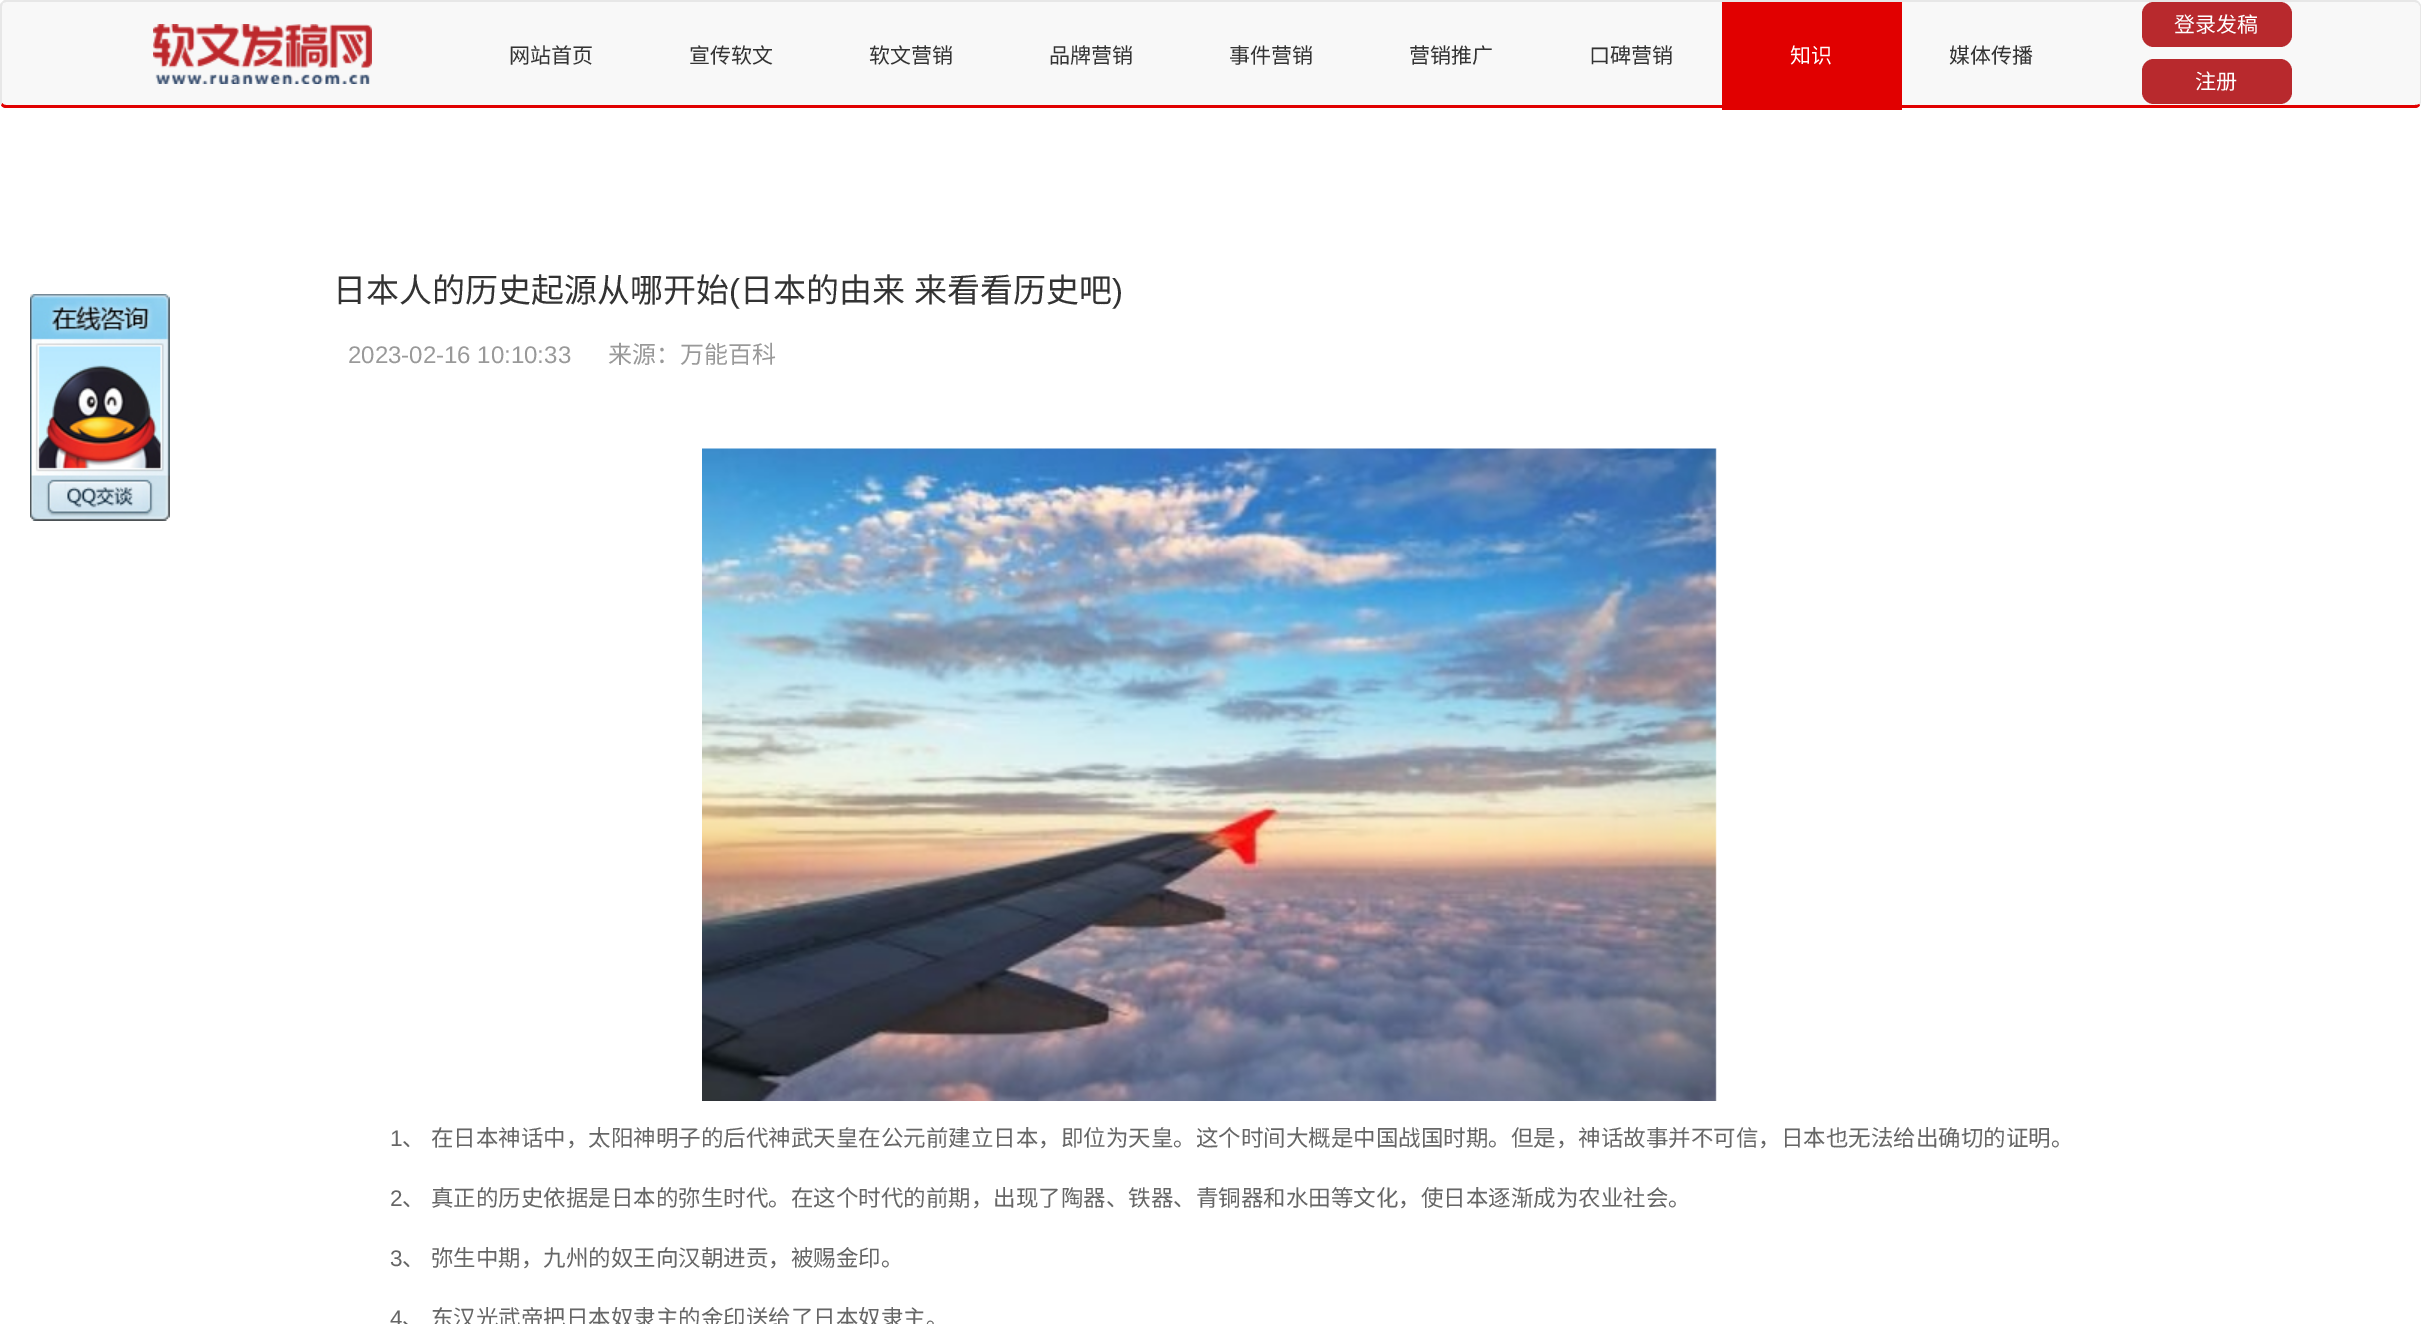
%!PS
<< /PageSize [2421 1324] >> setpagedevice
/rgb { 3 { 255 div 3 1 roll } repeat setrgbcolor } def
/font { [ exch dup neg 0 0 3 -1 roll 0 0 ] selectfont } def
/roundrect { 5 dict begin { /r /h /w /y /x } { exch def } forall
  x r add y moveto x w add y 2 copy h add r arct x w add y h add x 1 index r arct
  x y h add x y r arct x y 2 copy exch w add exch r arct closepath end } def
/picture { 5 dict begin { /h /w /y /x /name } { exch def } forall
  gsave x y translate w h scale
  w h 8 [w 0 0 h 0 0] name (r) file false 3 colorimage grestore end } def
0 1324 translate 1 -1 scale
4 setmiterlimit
255 255 255 rgb
0 0 2421 1324 rectfill
248 248 248 rgb
6 2 moveto 2415 2 lineto 2417 2 2420 4 2420 6 curveto 2420 102 lineto 2420 104 2417 105 2415 105 curveto 6 105 lineto 4 105 2 104 2 102 curveto 2 6 lineto 2 4 4 2 6 2 curveto closepath fill
231 231 231 rgb
6 0 moveto 4 0 3 1 2 2 curveto 3 3 lineto 6 2 lineto 2415 2 lineto 2418 3 lineto 2419 2 lineto 2418 1 2416 0 2415 0 curveto closepath fill
2421 102 moveto 2421 5 lineto 2419 2 lineto 2418 3 lineto 2420 6 lineto 2420 102 lineto 2419 104 lineto 2420 105 lineto closepath fill
225 0 0 rgb
6 108 moveto 2415 108 lineto 2417 108 2419 107 2420 105 curveto 2419 104 lineto 2418 105 2416 105 2415 105 curveto 6 105 lineto 4 105 3 104 2 103 curveto 1 105 lineto 2 107 4 108 6 108 curveto closepath fill
231 231 231 rgb
0 6 moveto 0 102 lineto 0 103 0 104 1 105 curveto 2 103 lineto 2 6 lineto 3 3 lineto 2 2 lineto 1 3 0 4 0 6 curveto closepath fill
(img/1.rgb) 153 24 219 60 picture
225 0 0 rgb
1722 2 180 108 rectfill
184 41 45 rgb
2142 2 150 45 12 roundrect fill
2142 59 150 45 12 roundrect fill
(img/2.rgb) 30 294 140 227 picture
(img/3.rgb) 702 448 1015 653 picture
/NotoSansCJKSC-Regular 21 font
51 51 51 rgb
[
  [(网站首页) 509 63]
  [(宣传软文) 689 63]
  [(软文营销) 869 63]
  [(品牌营销) 1049 63]
  [(事件营销) 1229 63]
  [(营销推广) 1409 63]
  [(口碑营销) 1589 63]
] { aload pop moveto show } forall
255 255 255 rgb
1790 63 moveto (知识) show
51 51 51 rgb
1949 63 moveto (媒体传播) show
255 255 255 rgb
2174 32 moveto (登录发稿) show
2195 89 moveto (注册) show
/NotoSansCJKSC-Regular 33 font
51 51 51 rgb
333 302 moveto (日本人的历史起源从哪开始) show
/LiberationSans-Regular 33 font
729 302 moveto (\() show
/NotoSansCJKSC-Regular 33 font
740 302 moveto 2 0 32 (日本的由来 来看看历史吧) widthshow
/LiberationSans-Regular 33 font
1112 302 moveto (\)) show
/LiberationSans-Regular 24 font
153 153 153 rgb
348 363 moveto (2023-02-16 10:10:33) show
/NotoSansCJKSC-Regular 24 font
608 363 moveto (来源：万能百科) show
/LiberationSans-Regular 22.5 font
102 102 102 rgb
390 1146 moveto (1) show
/NotoSansCJKSC-Regular 22.5 font
402 1146 moveto 1 0 32 (、 在日本神话中，太阳神明子的后代神武天皇在公元前建立日本，即位为天皇。这个时间大概是中国战国时期。但是，神话故事并不可信，日本也无法给出确切的证明。) widthshow
/LiberationSans-Regular 22.5 font
390 1206 moveto (2) show
/NotoSansCJKSC-Regular 22.5 font
402 1206 moveto 1 0 32 (、 真正的) widthshow
498 1206 moveto (历史依据是日本的弥生时代。在这个时代的前期，出现了陶器、铁器、青铜器和水田等文化，使日本逐渐成为农业社会。) show
/LiberationSans-Regular 22.5 font
390 1266 moveto (3) show
/NotoSansCJKSC-Regular 22.5 font
402 1266 moveto 1 0 32 (、 弥生中期，九州的奴王向汉朝进贡，被赐金印。) widthshow
/LiberationSans-Regular 22.5 font
390 1326 moveto (4) show
/NotoSansCJKSC-Regular 22.5 font
402 1326 moveto 1 0 32 (、 东汉光武帝把日本奴隶主的金印送给了日本奴隶主。) widthshow
showpage
